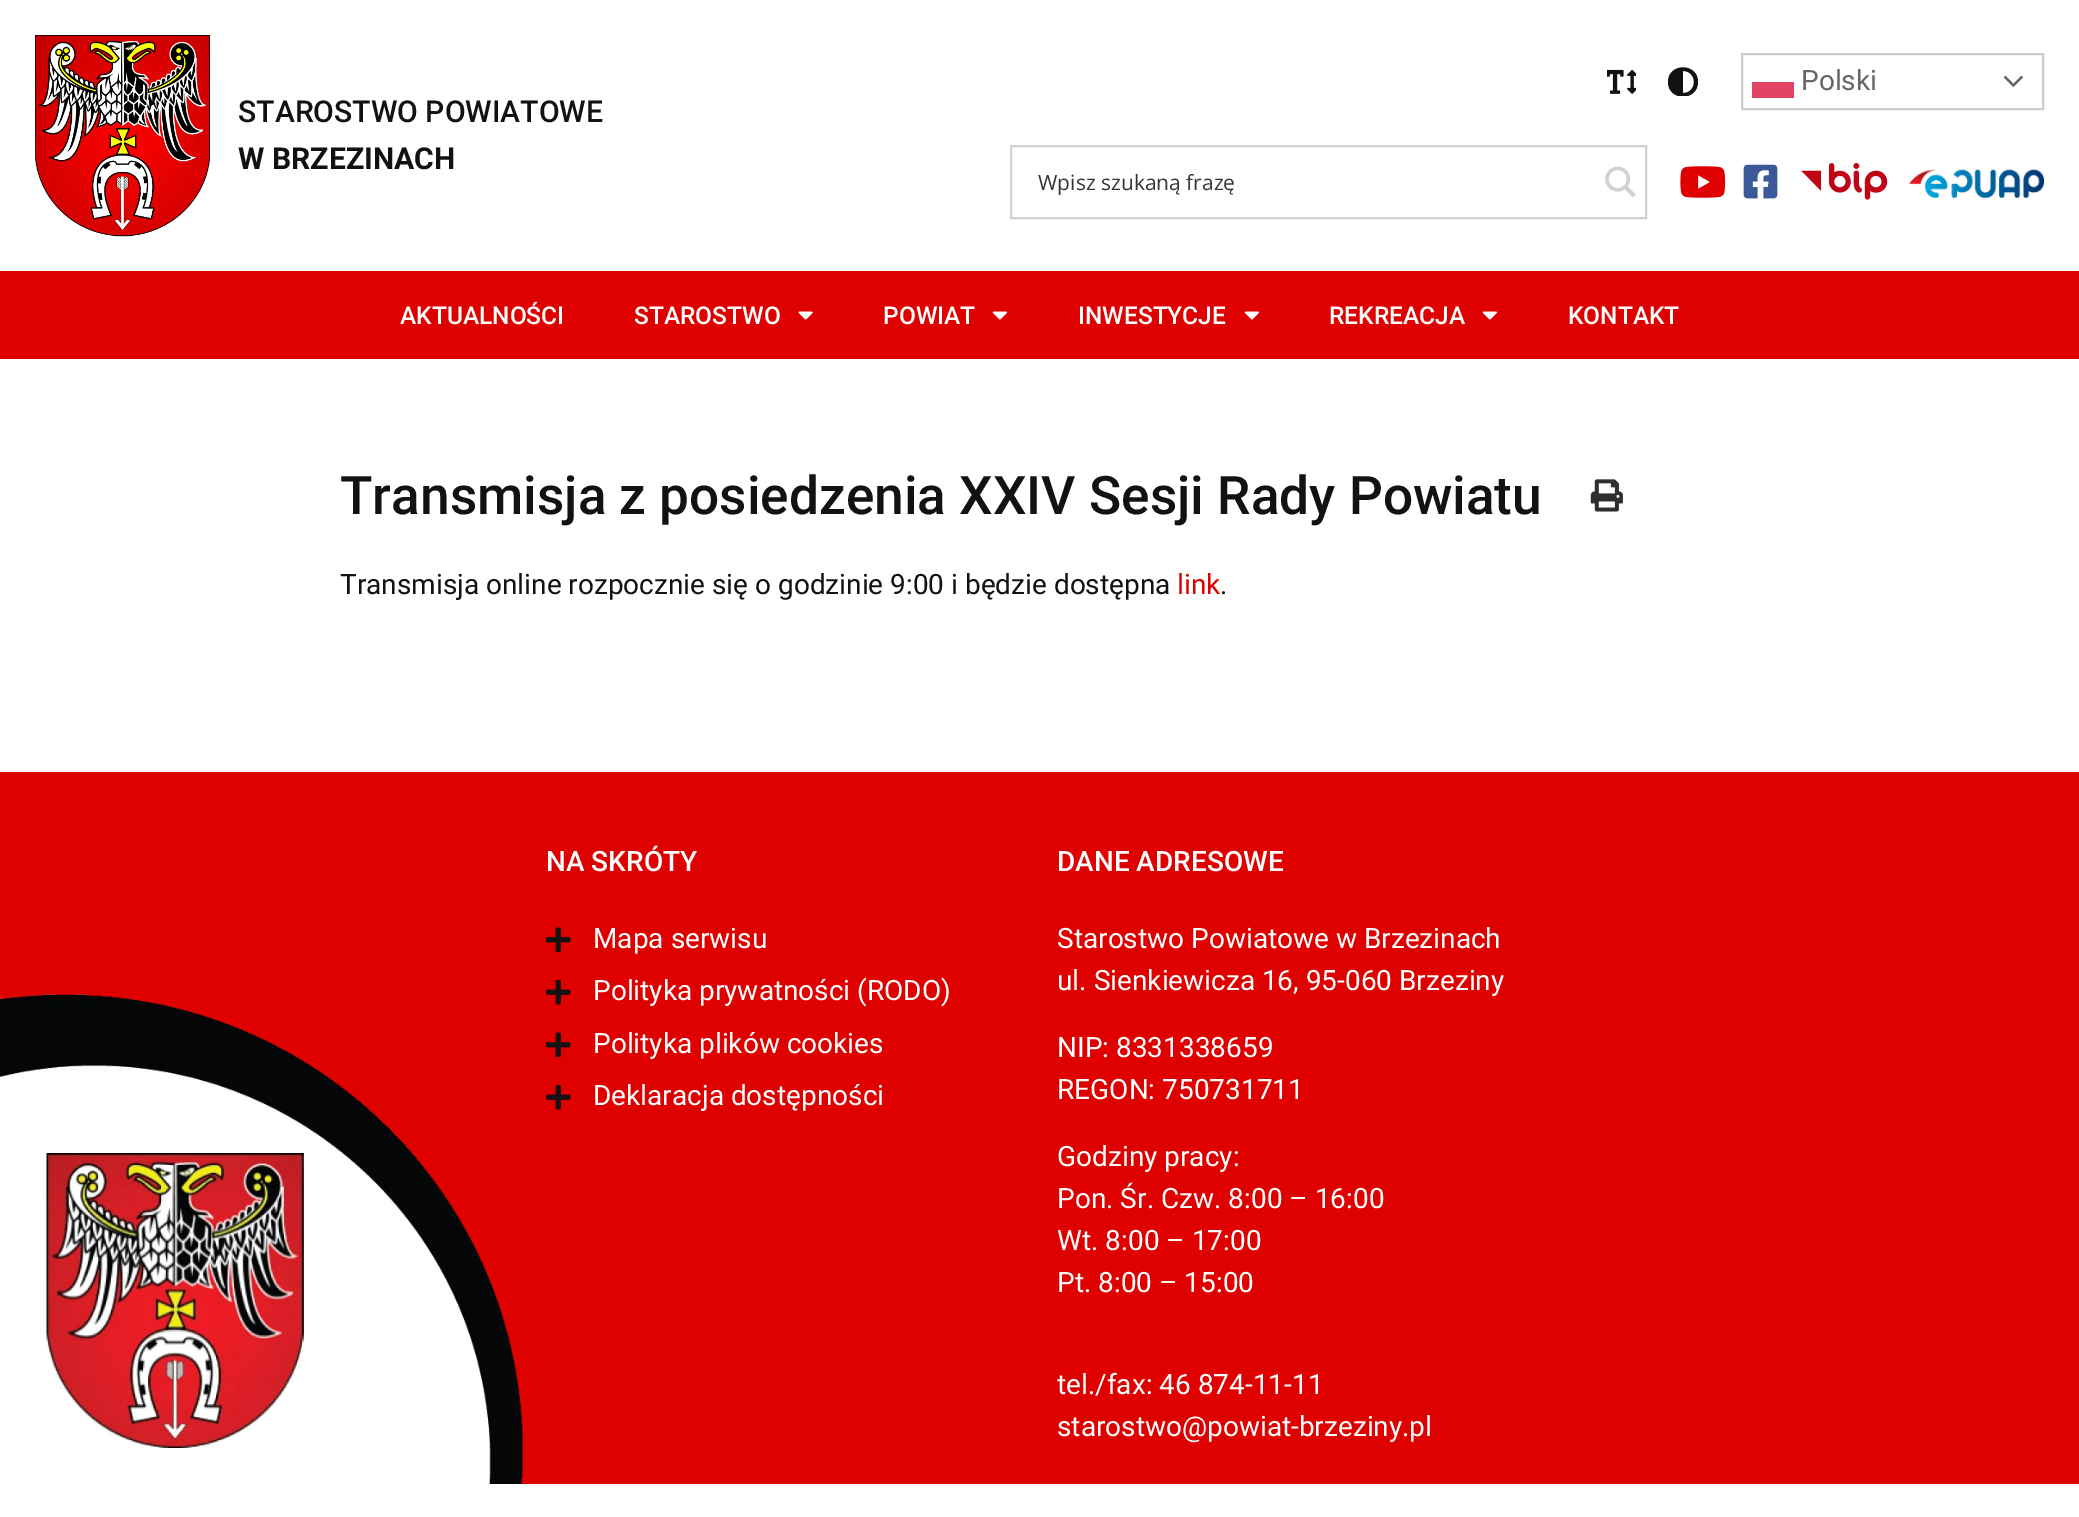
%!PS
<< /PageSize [2079 1517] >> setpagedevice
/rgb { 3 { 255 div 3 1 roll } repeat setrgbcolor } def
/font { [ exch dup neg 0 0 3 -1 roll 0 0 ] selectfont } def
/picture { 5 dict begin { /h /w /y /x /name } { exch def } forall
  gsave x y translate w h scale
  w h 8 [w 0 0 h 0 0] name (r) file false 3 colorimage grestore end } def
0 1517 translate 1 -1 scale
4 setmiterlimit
255 255 255 rgb
0 0 2079 1517 rectfill
(img/1.rgb) 35 35 175 202 picture
(img/2.rgb) 1607 69 29 25 picture
gsave
1668 67 31 29 rectclip
18 18 18 rgb
1668 82 moveto 1668 101.5 1698 101.5 1698 82 curveto 1698 62.5 1668 62.5 1668 82 curveto closepath 1683 93 moveto 1683 71 lineto 1697.5 71 1697.5 93 1683 93 curveto closepath fill
grestore
204 204 204 rgb
2 setlinewidth
1742 54 301 55 rectstroke
227 67 99 rgb
1752 82 42 16 rectfill
(img/3.rgb) 2004 75 19 12 picture
209 209 209 rgb
1011 146 635 72 rectstroke
(img/4.rgb) 1605 166 31 32 picture
(img/5.rgb) 1680 166 46 32 picture
(img/6.rgb) 1743 164 35 35 picture
(img/7.rgb) 1801 163 87 37 picture
(img/8.rgb) 1909 169 135 29 picture
223 0 0 rgb
0 271 2079 88 rectfill
(img/9.rgb) 798 311 15 9 picture
(img/10.rgb) 992 311 15 9 picture
(img/10.rgb) 1244 311 15 9 picture
(img/10.rgb) 1482 311 15 9 picture
(img/11.rgb) 1590 479 33 33 picture
0 772 2079 712 rectfill
(img/12.rgb) 0 994 524 490 picture
(img/13.rgb) 546 927 25 25 picture
(img/14.rgb) 546 980 25 25 picture
(img/13.rgb) 546 1032 25 25 picture
(img/14.rgb) 546 1085 25 25 picture
/Roboto-Medium 30.1 font
18 18 18 rgb
238 122 moveto (STAROSTWO POWIATOWE) show
/Roboto-Bold 30.1 font
238 169 moveto (W BRZEZINACH) show
/Roboto-Regular 28 font
102 102 102 rgb
1801 90 moveto (Polski) show
/OpenSans-Regular 21 font
54 54 54 rgb
1038 190 moveto (Wpisz szukaną frazę) show
/Roboto-Medium 24.5 font
255 255 255 rgb
[
  [(AKTUALNOŚCI) 400 324]
  [(STAROSTWO) 634 324]
  [(POWIAT) 883 324]
  [(INWESTYCJE) 1078 324]
  [(REKREACJA) 1329 324]
  [(KONTAKT) 1568 324]
] { aload pop moveto show } forall
/Roboto-Medium 53.2 font
18 18 18 rgb
340 514 moveto (Transmisja z posiedzenia XXIV Sesji Rady Powiatu) show
/Roboto-Regular 28 font
340 594 moveto (Transmisja online rozpocznie się o godzinie 9:00 i będzie dostępna) show
223 0 0 rgb
1177 594 moveto (link) show
18 18 18 rgb
1220 594 moveto (.) show
/Roboto-Medium 28 font
255 255 255 rgb
546 871 moveto (NA SKRÓTY) show
/Roboto-Regular 28 font
[
  [(Mapa serwisu) 593 948]
  [(Polityka prywatności \(RODO\)) 593 1000]
  [(Polityka plików cookies) 593 1053]
  [(Deklaracja dostępności) 593 1105]
] { aload pop moveto show } forall
/Roboto-Medium 28 font
1057 871 moveto (DANE ADRESOWE) show
/Roboto-Regular 28 font
[
  [(Starostwo Powiatowe w Brzezinach) 1057 948]
  [(ul. Sienkiewicza 16, 95-060 Brzeziny) 1057 990]
  [(NIP: 8331338659) 1057 1057]
  [(REGON: 750731711) 1057 1099]
  [(Godziny pracy:) 1057 1166]
  [(Pon. Śr. Czw. 8:00 – 16:00) 1057 1208]
  [(Wt. 8:00 – 17:00) 1057 1250]
  [(Pt. 8:00 – 15:00) 1057 1292]
  [(tel./fax: 46 874-11-11) 1057 1394]
  [(starostwo@powiat-brzeziny.pl) 1057 1436]
] { aload pop moveto show } forall
showpage
